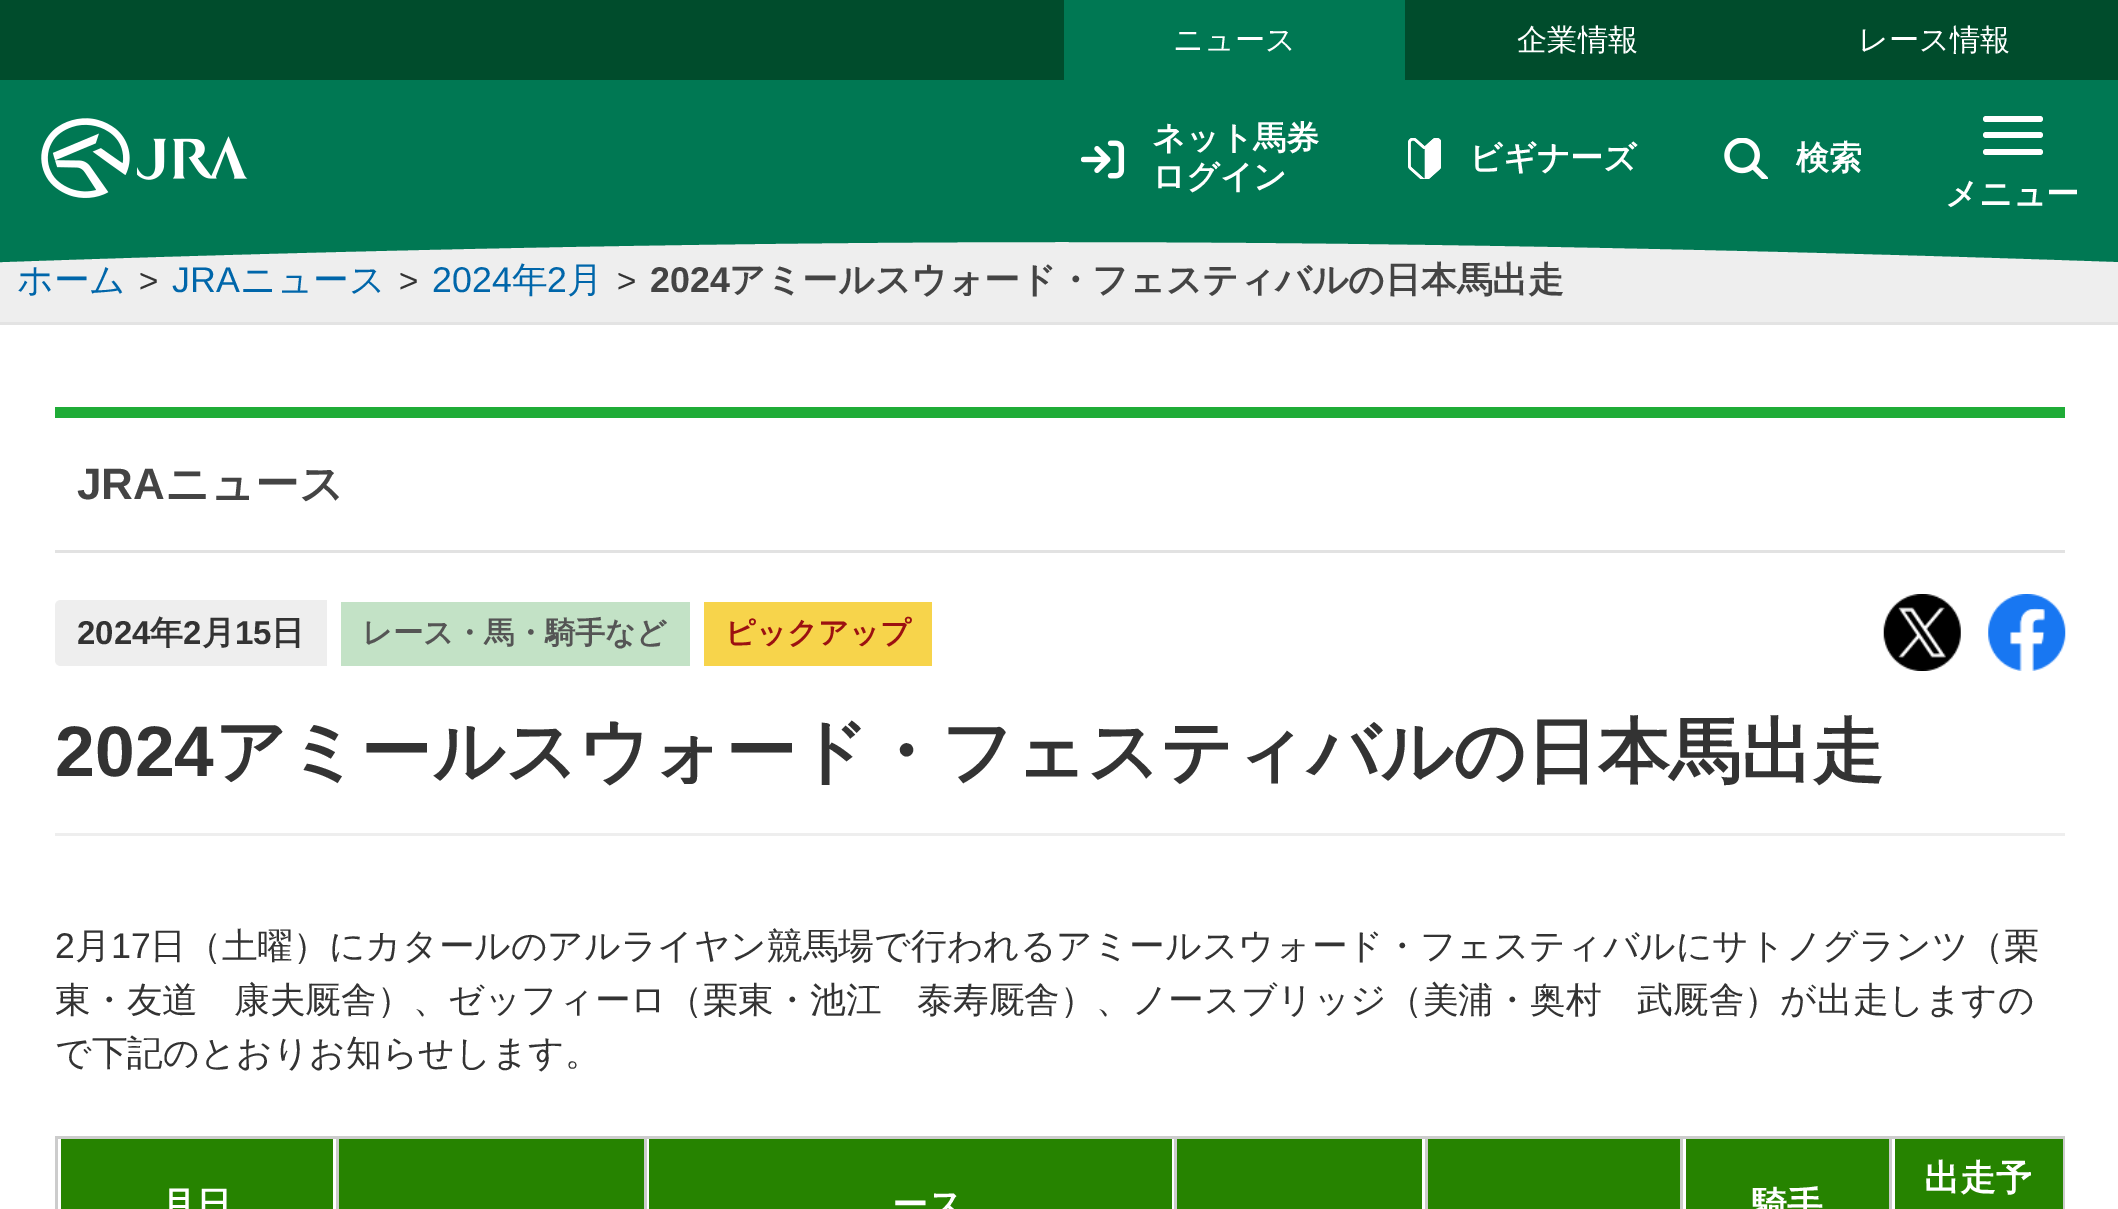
%!PS
<< /PageSize [2118 1209] >> setpagedevice
/rgb { 3 { 255 div 3 1 roll } repeat setrgbcolor } def
/font { [ exch dup neg 0 0 3 -1 roll 0 0 ] selectfont } def
/roundrect { 5 dict begin { /r /h /w /y /x } { exch def } forall
  x r add y moveto x w add y 2 copy h add r arct x w add y h add x 1 index r arct
  x y h add x y r arct x y 2 copy exch w add exch r arct closepath end } def
/picture { 5 dict begin { /h /w /y /x /name } { exch def } forall
  gsave x y translate w h scale
  w h 8 [w 0 0 h 0 0] name (r) file false 3 colorimage grestore end } def
0 1209 translate 1 -1 scale
4 setmiterlimit
255 255 255 rgb
0 0 2118 1209 rectfill
[
  [0 80 2118 158 0 120 83]
  [0 0 2118 80 0 76 44]
  [1064 0 341 80 0 120 83]
] { aload pop rgb rectfill } forall
(img/1.rgb) 41 118 207 80 picture
(img/2.rgb) 1081 140 44 39 picture
(img/3.rgb) 1408 138 33 41 picture
(img/4.rgb) 1724 138 44 41 picture
255 255 255 rgb
1983 116 60 6 3 roundrect fill
1983 132 60 6 3 roundrect fill
1983 149 60 6 3 roundrect fill
[
  [0 242 2118 80 238 238 238]
  [0 322 2118 3 227 227 227]
  [55 407 2010 11 31 172 55]
  [55 550 2010 3 226 226 226]
  [55 833 2010 3 238 238 238]
] { aload pop rgb rectfill } forall
61 600 moveto 327 600 lineto 327 666 lineto 61 666 lineto 57.5 666 55 663.5 55 660 curveto 55 606 lineto 55 602.5 57.5 600 61 600 curveto closepath fill
195 226 198 rgb
341 602 349 64 rectfill
247 212 75 rgb
704 602 228 64 rectfill
(img/5.rgb) 1883 594 78 77 picture
(img/6.rgb) 1988 594 78 77 picture
[
  [339 1139 305 70 38 131 0]
  [1889 1136 176 3 204 204 204]
  [1889 1136 3 73 204 204 204]
  [1680 1136 212 3 204 204 204]
  [1680 1136 3 73 204 204 204]
  [1425 1136 258 3 204 204 204]
  [1425 1136 3 73 204 204 204]
  [1174 1136 253 3 204 204 204]
  [1174 1136 3 73 204 204 204]
  [644 1136 533 3 204 204 204]
  [644 1136 3 73 204 204 204]
  [336 1136 310 3 204 204 204]
  [336 1136 3 73 204 204 204]
  [1177 1139 245 70 38 131 0]
  [1428 1139 252 70 38 131 0]
  [1895 1139 168 70 38 131 0]
  [2063 1136 2 73 204 204 204]
  [61 1139 272 70 38 131 0]
  [55 1136 283 3 204 204 204]
  [55 1136 3 73 204 204 204]
  [649 1139 523 70 38 131 0]
  [1686 1139 203 70 38 131 0]
] { aload pop rgb rectfill } forall
/WenQuanYiZenHei-Medium 30.25 font
255 255 255 rgb
[
  [(ニュース) 1173 50]
  [(企業情報) 1517 50]
  [(レース情報) 1858 50]
] { aload pop moveto show } forall
/WenQuanYiZenHei-Bold 33 font
[
  [(ネット馬券) 1152 149]
  [(ログイン) 1152 188]
  [(ビギナーズ) 1469 169]
  [(検索) 1796 169]
  [(メニュー) 1945 205]
] { aload pop moveto show } forall
/WenQuanYiZenHei-Medium 35.75 font
0 102 170 rgb
17 292 moveto (ホーム) show
/LiberationSans-Regular 33 font
51 51 51 rgb
139 292 moveto (>) show
/LiberationSans-Regular 35.75 font
0 102 170 rgb
172 292 moveto (JRA) show
/WenQuanYiZenHei-Medium 35.75 font
240 292 moveto (ニュース) show
/LiberationSans-Regular 33 font
51 51 51 rgb
399 292 moveto (>) show
/LiberationSans-Regular 35.75 font
0 102 170 rgb
432 292 moveto (2024) show
/WenQuanYiZenHei-Medium 35.75 font
512 292 moveto (年) show
/LiberationSans-Regular 35.75 font
547 292 moveto (2) show
/WenQuanYiZenHei-Medium 35.75 font
567 292 moveto (月) show
/LiberationSans-Regular 33 font
51 51 51 rgb
617 292 moveto (>) show
/LiberationSans-Bold 35.75 font
68 68 68 rgb
650 292 moveto (2024) show
/WenQuanYiZenHei-Bold 35.75 font
729 292 moveto (アミールスウォード・フェスティバルの日本馬出走) show
0 120 83 rgb
-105 238 moveto 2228 238 lineto 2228 266 lineto 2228 266 1645 242 1062 242 curveto 479 242 -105 266 -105 266 curveto closepath fill
/LiberationSans-Bold 44 font
68 68 68 rgb
77 499 moveto (JRA) show
/WenQuanYiZenHei-Bold 44 font
165 499 moveto (ニュース) show
/LiberationSans-Bold 33 font
51 51 51 rgb
77 644 moveto (2024) show
/WenQuanYiZenHei-Bold 33 font
150 644 moveto (年) show
/LiberationSans-Bold 33 font
183 644 moveto (2) show
/WenQuanYiZenHei-Bold 33 font
202 644 moveto (月) show
/LiberationSans-Bold 33 font
235 644 moveto (15) show
/WenQuanYiZenHei-Bold 33 font
271 644 moveto (日) show
/WenQuanYiZenHei-Bold 30.25 font
85 85 85 rgb
362 643 moveto (レース・馬・騎手など) show
156 17 17 rgb
725 643 moveto (ピックアップ) show
/LiberationSans-Bold 71.5 font
51 51 51 rgb
55 776 moveto (2024) show
/WenQuanYiZenHei-Bold 71.5 font
214 776 moveto (アミールスウォード・フェスティバルの日本馬出走) show
/LiberationSans-Regular 35.75 font
55 958 moveto (2) show
/WenQuanYiZenHei-Medium 35.75 font
75 958 moveto (月) show
/LiberationSans-Regular 35.75 font
111 958 moveto (17) show
/WenQuanYiZenHei-Medium 35.75 font
[
  [(日（土曜）にカタールのアルライヤン競馬場で行われるアミールスウォード・フェスティバルにサトノグランツ（栗) 150 958]
  [(東・友道　康夫厩舎）、ゼッフィーロ（栗東・池江　泰寿厩舎）、ノースブリッジ（美浦・奥村　武厩舎）が出走しますの) 55 1012]
  [(で下記のとおりお知らせします。) 55 1065]
] { aload pop moveto show } forall
/WenQuanYiZenHei-Bold 35.75 font
255 255 255 rgb
[
  [(出走予) 1924 1190]
  [(月日) 160 1217]
  [(ース) 892 1217]
  [(騎手) 1751 1217]
] { aload pop moveto show } forall
showpage
